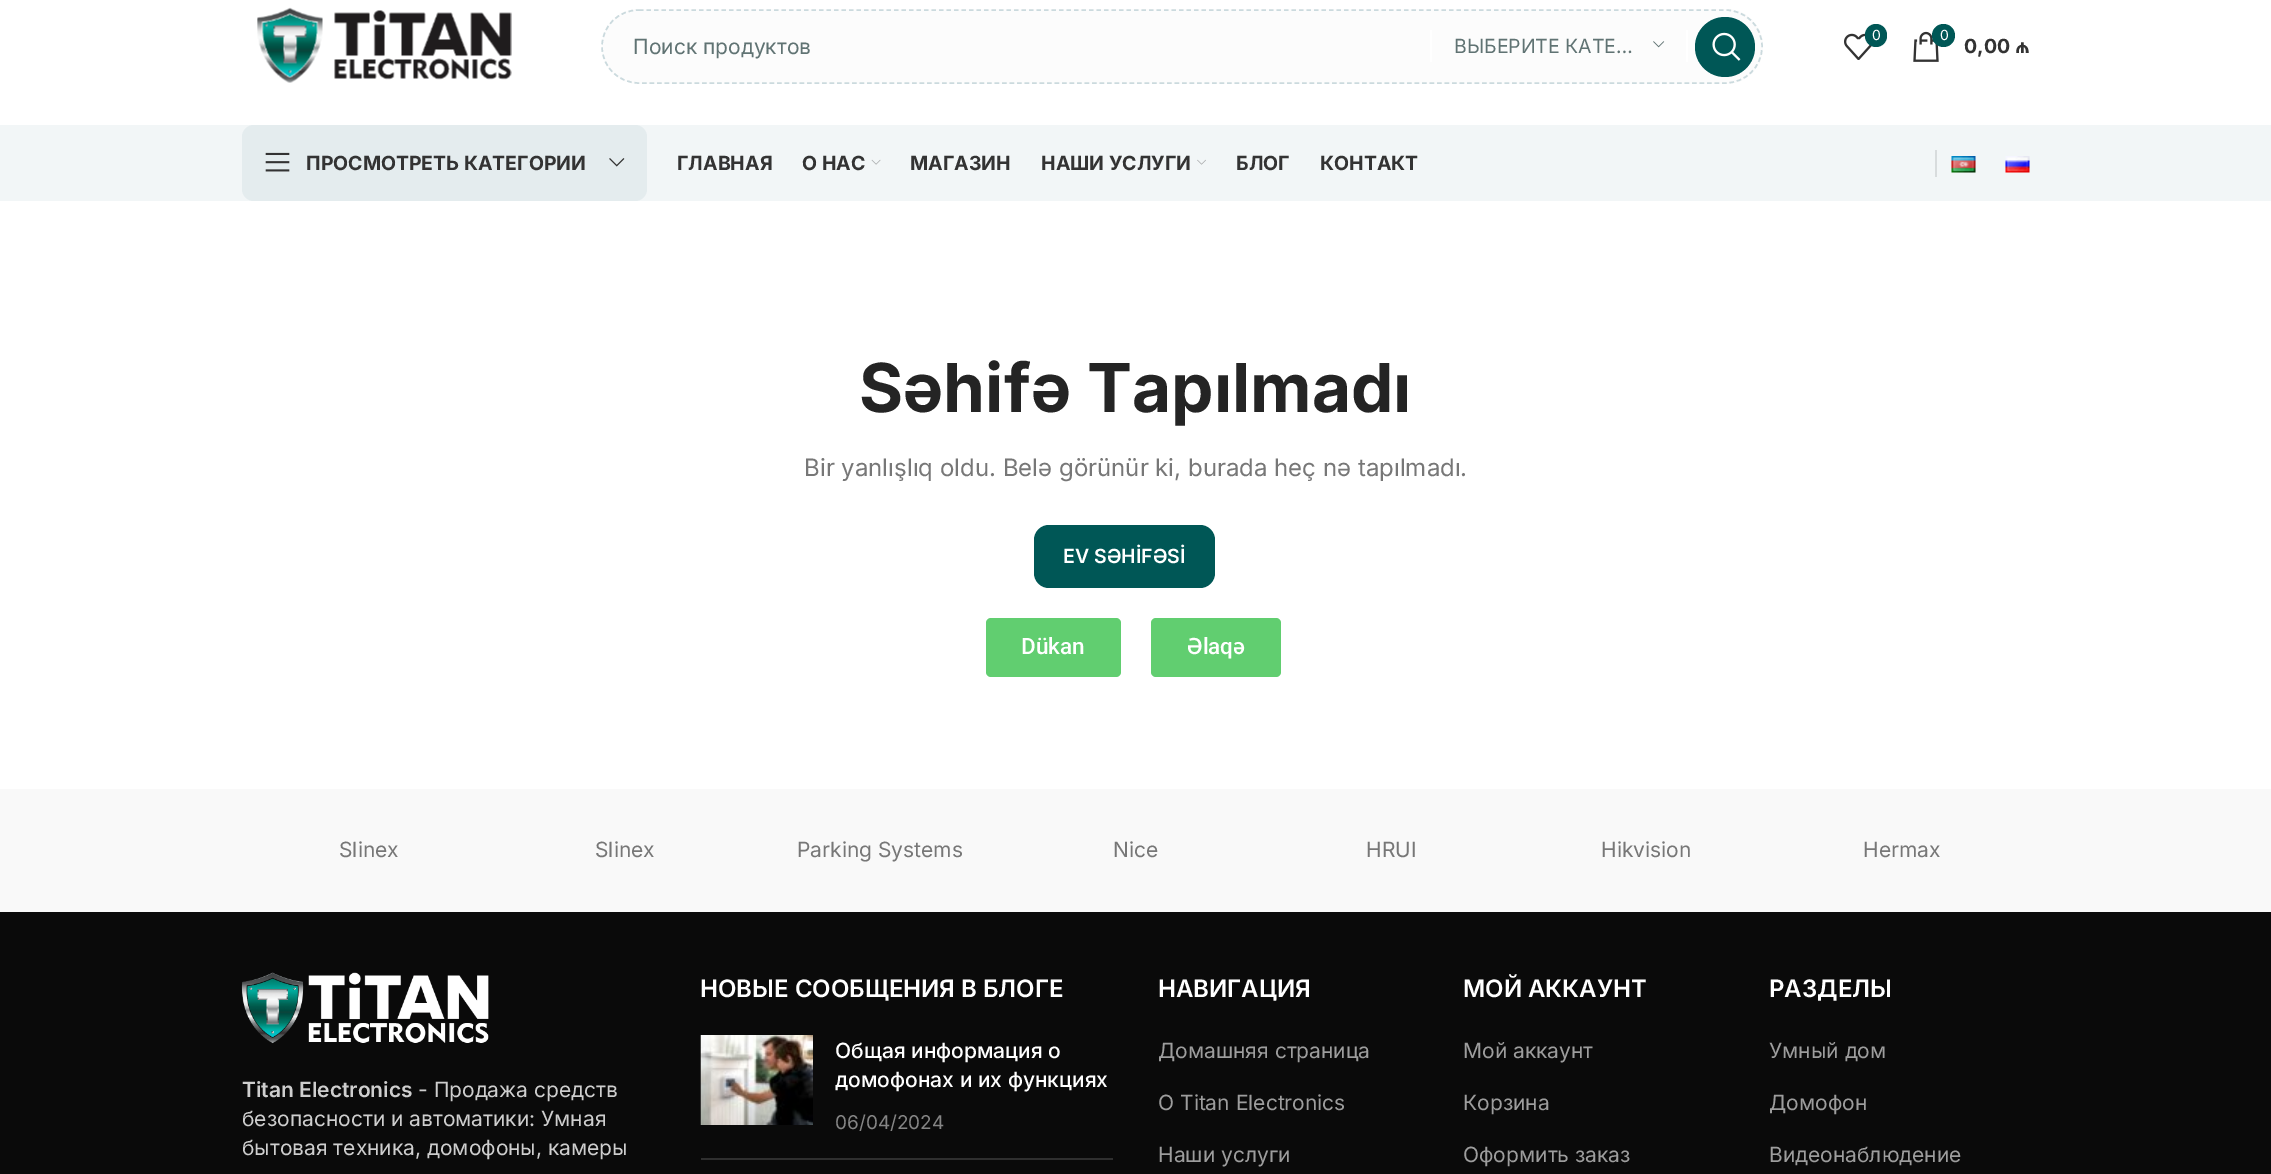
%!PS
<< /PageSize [2271 1174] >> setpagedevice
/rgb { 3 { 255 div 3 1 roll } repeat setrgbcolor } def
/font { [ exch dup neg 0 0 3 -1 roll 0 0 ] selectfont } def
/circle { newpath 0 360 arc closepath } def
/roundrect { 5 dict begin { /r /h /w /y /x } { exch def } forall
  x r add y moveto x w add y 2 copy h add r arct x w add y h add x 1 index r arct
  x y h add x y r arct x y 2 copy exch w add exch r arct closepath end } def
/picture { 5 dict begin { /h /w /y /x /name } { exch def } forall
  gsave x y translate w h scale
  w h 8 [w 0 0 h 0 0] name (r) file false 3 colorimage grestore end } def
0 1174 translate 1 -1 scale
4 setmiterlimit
255 255 255 rgb
0 0 2271 1174 rectfill
242 246 247 rgb
0 125 2271 76 rectfill
(img/1.rgb) 257 7 255 76 picture
252 252 252 rgb
602 9 1161 75 37.5 roundrect fill
203 218 222 rgb
1.5 setlinewidth
[4.5 3] 0 setdash
639 10 moveto 1725 10 lineto 1745.5 10 1762 26 1762 46.5 curveto 1762 67 1745.5 83 1725 83 curveto 639 83 lineto 618.5 83 602 67 602 46.5 curveto 602 26 618.5 10 639 10 curveto closepath stroke
255 255 255 rgb
1686 30 2 32 rectfill
1430 30 2 32 rectfill
(img/2.rgb) 1653 41 12 7 picture
0 87 86 rgb
1725 47 30 circle fill
(img/3.rgb) 1712 32 29 29 picture
(img/4.rgb) 1844 33 28 27 picture
1865 24 22 23 11 roundrect fill
(img/5.rgb) 1913 31 26 31 picture
1943.5 35.5 11.5 circle fill
228 236 238 rgb
242 125 405 76 12 roundrect fill
(img/6.rgb) 265 152 25 20 picture
(img/7.rgb) 609 158 16 9 picture
(img/8.rgb) 871 159 10 6 picture
(img/9.rgb) 1197 159 9 6 picture
216 220 221 rgb
1935 150 2 27 rectfill
(img/10.rgb) 1951 156 25 17 picture
(img/11.rgb) 2005 156 25 17 picture
0 87 86 rgb
1034 525 181 63 15 roundrect fill
97 206 112 rgb
986 618 135 59 5 roundrect fill
1151 618 130 59 5 roundrect fill
249 249 249 rgb
0 789 2271 123 rectfill
10 10 10 rgb
0 912 2271 262 rectfill
(img/12.rgb) 241 972 248 72 picture
47 47 47 rgb
701 1158 412 2 rectfill
(img/13.rgb) 700 1035 113 90 picture
/Inter-Regular 21 font
96 115 115 rgb
633 54 moveto (Поиск продуктов) show
/Inter-Regular 19.5 font
1454 53 moveto (ВЫБЕРИТЕ КАТЕ…) show
/Inter-Regular 14 font
255 255 255 rgb
1872 40 moveto (0) show
1940 40 moveto (0) show
/Inter-Bold 19.5 font
51 51 51 rgb
[
  [(0,00 ₼) 1964 53]
  [(ПРОСМОТРЕТЬ КАТЕГОРИИ) 306 170]
  [(ГЛАВНАЯ) 677 170]
  [(О НАС) 802 170]
  [(МАГАЗИН) 910 170]
  [(НАШИ УСЛУГИ) 1041 170]
  [(БЛОГ) 1236 170]
  [(КОНТАКТ) 1320 170]
] { aload pop moveto show } forall
/Inter-Bold 67.5 font
36 36 36 rgb
859 412 moveto (Səhifə Tapılmadı) show
/Inter-Regular 24 font
119 119 119 rgb
804 476 moveto (Bir yanlışlıq oldu. Belə görünür ki, burada heç nə tapılmadı.) show
/Inter-SemiBold 19.5 font
255 255 255 rgb
1063 563 moveto (EV SƏHİFƏSİ) show
/Roboto-Medium 22.5 font
1021 654 moveto (Dükan) show
1187 654 moveto (Əlaqə) show
/Inter-Regular 21 font
119 119 119 rgb
[
  [(Slinex) 339 857]
  [(Slinex) 595 857]
  [(Parking Systems) 797 857]
  [(Nice) 1113 857]
  [(HRUI) 1366 857]
  [(Hikvision) 1601 857]
  [(Hermax) 1863 857]
] { aload pop moveto show } forall
/Inter-SemiBold 21 font
206 206 206 rgb
242 1097 moveto (Titan Electronics) show
/Inter-Regular 21 font
[
  [(- Продажа средств) 418 1097]
  [(безопасности и автоматики: Умная) 242 1126]
  [(бытовая техника, домофоны, камеры) 242 1155]
] { aload pop moveto show } forall
/Inter-SemiBold 24 font
255 255 255 rgb
700 997 moveto (НОВЫЕ СООБЩЕНИЯ В БЛОГЕ) show
/Inter-Medium 21 font
835 1058 moveto (Общая информация о) show
835 1087 moveto (домофонах и их функциях) show
/Inter-Regular 19 font
133 133 133 rgb
835 1129 moveto (06/04/2024) show
/Inter-SemiBold 24 font
255 255 255 rgb
1158 997 moveto (НАВИГАЦИЯ) show
/Inter-Regular 21 font
157 157 157 rgb
[
  [(Домашняя страница) 1158 1058]
  [(О Titan Electronics) 1158 1110]
  [(Наши услуги) 1158 1162]
] { aload pop moveto show } forall
/Inter-SemiBold 24 font
255 255 255 rgb
1463 997 moveto (МОЙ АККАУНТ) show
/Inter-Regular 21 font
157 157 157 rgb
[
  [(Мой аккаунт) 1463 1058]
  [(Корзина) 1463 1110]
  [(Оформить заказ) 1463 1162]
] { aload pop moveto show } forall
/Inter-SemiBold 24 font
255 255 255 rgb
1769 997 moveto (РАЗДЕЛЫ) show
/Inter-Regular 21 font
157 157 157 rgb
[
  [(Умный дом) 1769 1058]
  [(Домофон) 1769 1110]
  [(Видеонаблюдение) 1769 1162]
] { aload pop moveto show } forall
showpage
